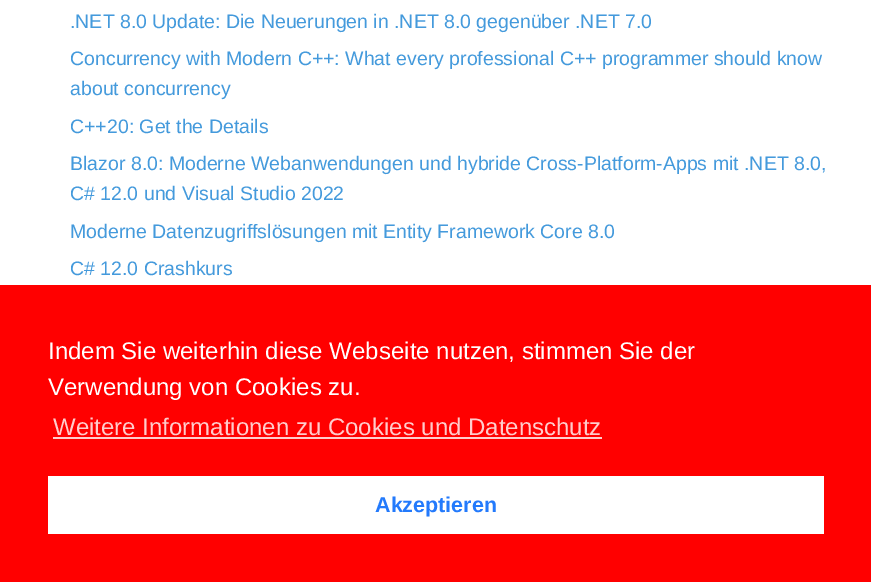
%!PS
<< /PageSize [871 582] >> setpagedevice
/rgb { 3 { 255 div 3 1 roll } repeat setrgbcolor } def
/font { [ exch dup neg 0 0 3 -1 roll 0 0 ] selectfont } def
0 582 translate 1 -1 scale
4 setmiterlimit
255 255 255 rgb
0 0 871 582 rectfill
[
  [0 285 871 297 255 0 0]
  [53 437 549 2 255 204 204]
  [48 476 776 58 255 255 255]
] { aload pop rgb rectfill } forall
/LiberationSans-Regular 19.5 font
68 154 220 rgb
[
  [(.NET 8.0 Update: Die Neuerungen in .NET 8.0 gegenüber .NET 7.0) 70 28]
  [(Concurrency with Modern C++: What every professional C++ programmer should know) 70 65]
  [(about concurrency) 70 95]
  [(C++20: Get the Details) 70 133]
  [(Blazor 8.0: Moderne Webanwendungen und hybride Cross-Platform-Apps mit .NET 8.0,) 70 170]
  [(C# 12.0 und Visual Studio 2022) 70 200]
  [(Moderne Datenzugriffslösungen mit Entity Framework Core 8.0) 70 238]
  [(C# 12.0 Crashkurs) 70 275]
] { aload pop moveto show } forall
/LiberationSans-Regular 24 font
255 255 255 rgb
48 359 moveto (Indem Sie weiterhin diese Webseite nutzen, stimmen Sie der) show
48 395 moveto (Verwendung von Cookies zu.) show
255 204 204 rgb
53 435 moveto (Weitere Informationen zu Cookies und Datenschutz) show
/LiberationSans-Bold 21.5 font
35 122 252 rgb
375 512 moveto (Akzeptieren) show
showpage
